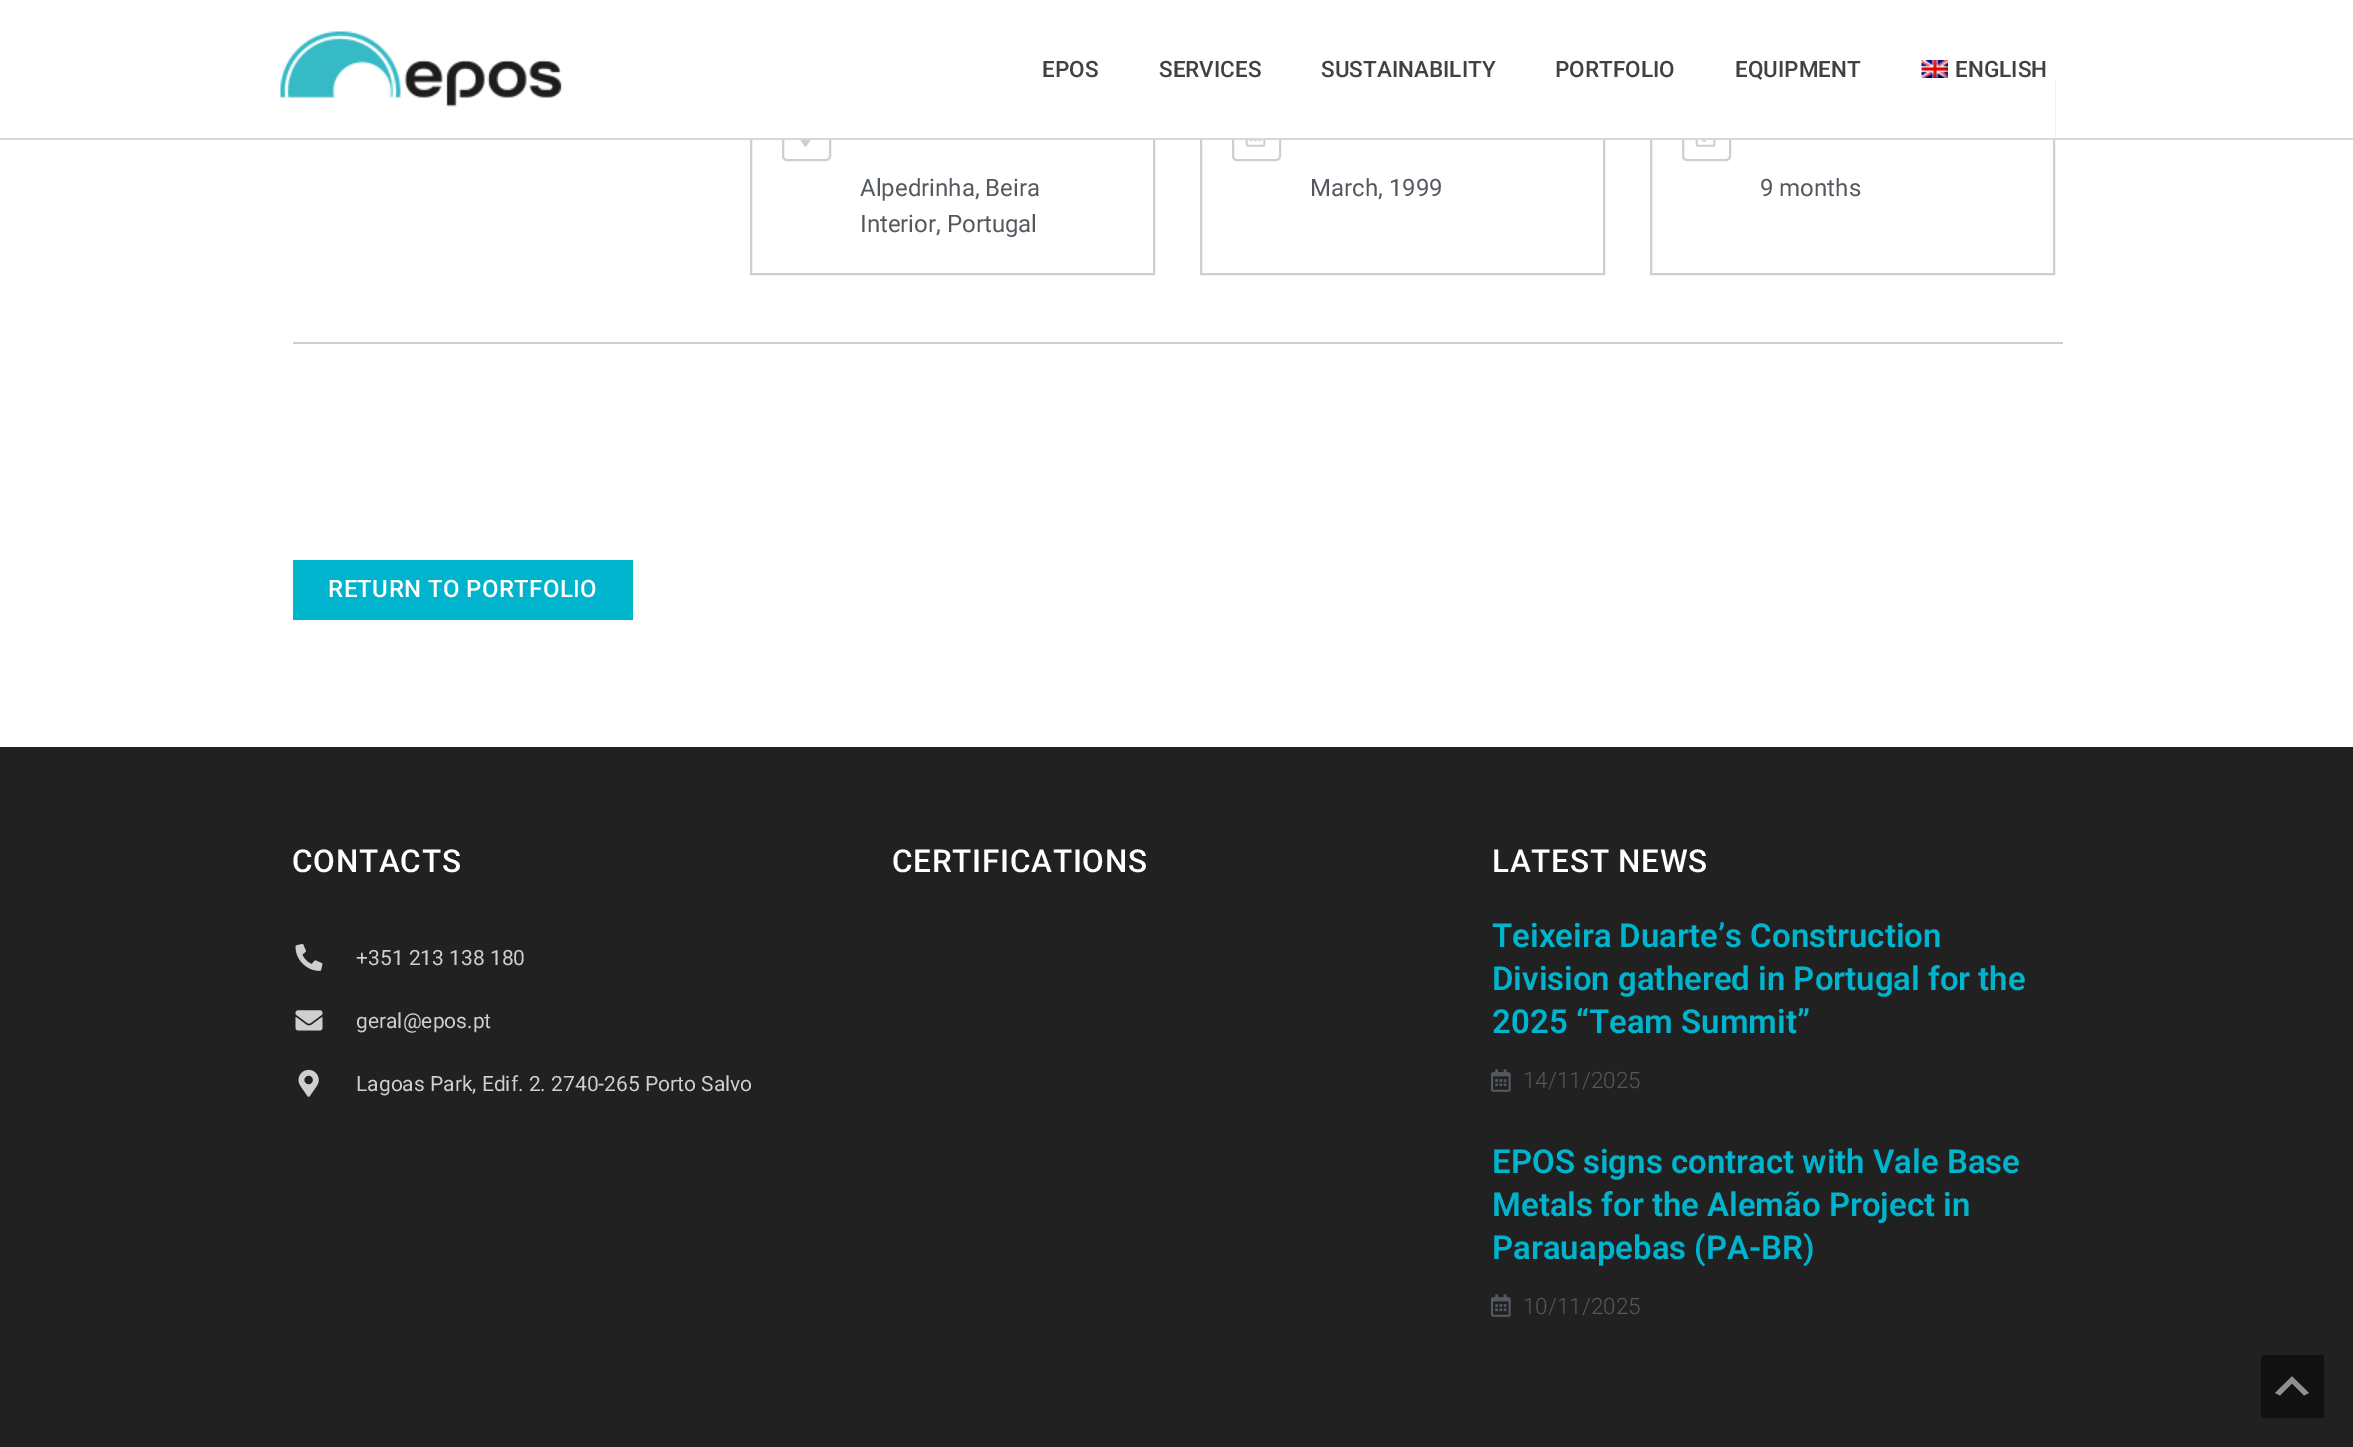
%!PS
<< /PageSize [2353 1447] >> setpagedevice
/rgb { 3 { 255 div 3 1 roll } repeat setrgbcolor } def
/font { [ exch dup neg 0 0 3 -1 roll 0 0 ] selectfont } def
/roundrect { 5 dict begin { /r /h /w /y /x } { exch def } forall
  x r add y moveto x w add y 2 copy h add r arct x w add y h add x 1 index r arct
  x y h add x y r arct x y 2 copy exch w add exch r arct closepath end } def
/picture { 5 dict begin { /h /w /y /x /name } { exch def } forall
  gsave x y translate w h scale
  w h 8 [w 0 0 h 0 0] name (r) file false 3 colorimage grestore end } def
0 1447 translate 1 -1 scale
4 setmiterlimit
255 255 255 rgb
0 0 2353 1447 rectfill
207 207 207 rgb
2 setlinewidth
751 81 403 193 rectstroke
783 112 47 48 4 roundrect stroke
1201 81 403 193 rectstroke
1233 112 47 48 4 roundrect stroke
1651 81 403 193 rectstroke
1683 112 47 48 4 roundrect stroke
255 255 255 rgb
750 80 1305 58 rectfill
216 216 216 rgb
0 138 2353 2 rectfill
(img/1.rgb) 280 31 282 76 picture
(img/2.rgb) 1921 60 27 18 picture
(img/3.rgb) 800 140 11 7 picture
(img/4.rgb) 1245 140 21 7 picture
(img/5.rgb) 1695 140 21 7 picture
[
  [293 342 1770 2 207 207 207]
  [293 560 340 60 0 180 205]
  [0 747 2353 700 33 33 33]
] { aload pop rgb rectfill } forall
(img/6.rgb) 295 943 28 28 picture
(img/7.rgb) 295 1010 28 21 picture
(img/8.rgb) 298 1069 21 28 picture
(img/9.rgb) 1491 1069 20 23 picture
(img/9.rgb) 1491 1294 20 23 picture
17 17 17 rgb
2261 1355 63 63 3 roundrect fill
144 144 144 rgb
2304 1395.5 moveto 2292 1383.5 lineto 2280 1395.5 lineto 2275 1393 lineto 2292 1376.5 lineto 2309 1393 lineto closepath fill
/Roboto-Medium 22.5 font
65 65 65 rgb
[
  [(EPOS) 1042 77]
  [(SERVICES) 1159 77]
  [(SUSTAINABILITY) 1321 77]
  [(PORTFOLIO) 1555 77]
  [(EQUIPMENT) 1735 77]
  [(ENGLISH) 1955 77]
] { aload pop moveto show } forall
/Roboto-Regular 24 font
84 89 95 rgb
[
  [(Alpedrinha, Beira) 860 196]
  [(Interior, Portugal) 860 232]
  [(March, 1999) 1310 196]
  [(9 months) 1760 196]
] { aload pop moveto show } forall
/Roboto-Medium 24 font
255 255 255 rgb
328 597 moveto 0.4 0 (RETURN TO PORTFOLIO) ashow
/Roboto-Medium 31.5 font
292 872 moveto 0.75 0 (CONTACTS) ashow
/Roboto-Regular 21 font
207 207 207 rgb
[
  [(+351 213 138 180) 356 965]
  [(geral@epos.pt) 356 1028]
  [(Lagoas Park, Edif. 2. 2740-265 Porto Salvo) 356 1091]
] { aload pop moveto show } forall
/Roboto-Medium 31.5 font
255 255 255 rgb
892 872 moveto 0.75 0 (CERTIFICATIONS) ashow
1492 872 moveto 0.75 0 (LATEST NEWS) ashow
/Roboto-SemiBold 33 font
0 180 205 rgb
[
  [(Teixeira Duarte’s Construction) 1492 947]
  [(Division gathered in Portugal for the) 1492 990]
  [(2025 “Team Summit”) 1492 1033]
] { aload pop moveto show } forall
/Roboto-Light 22.5 font
84 89 95 rgb
1523 1088 moveto (14/11/2025) show
/Roboto-SemiBold 33 font
0 180 205 rgb
[
  [(EPOS signs contract with Vale Base) 1492 1173]
  [(Metals for the Alemão Project in) 1492 1216]
  [(Parauapebas \(PA-BR\)) 1492 1259]
] { aload pop moveto show } forall
/Roboto-Light 22.5 font
84 89 95 rgb
1523 1314 moveto (10/11/2025) show
showpage
